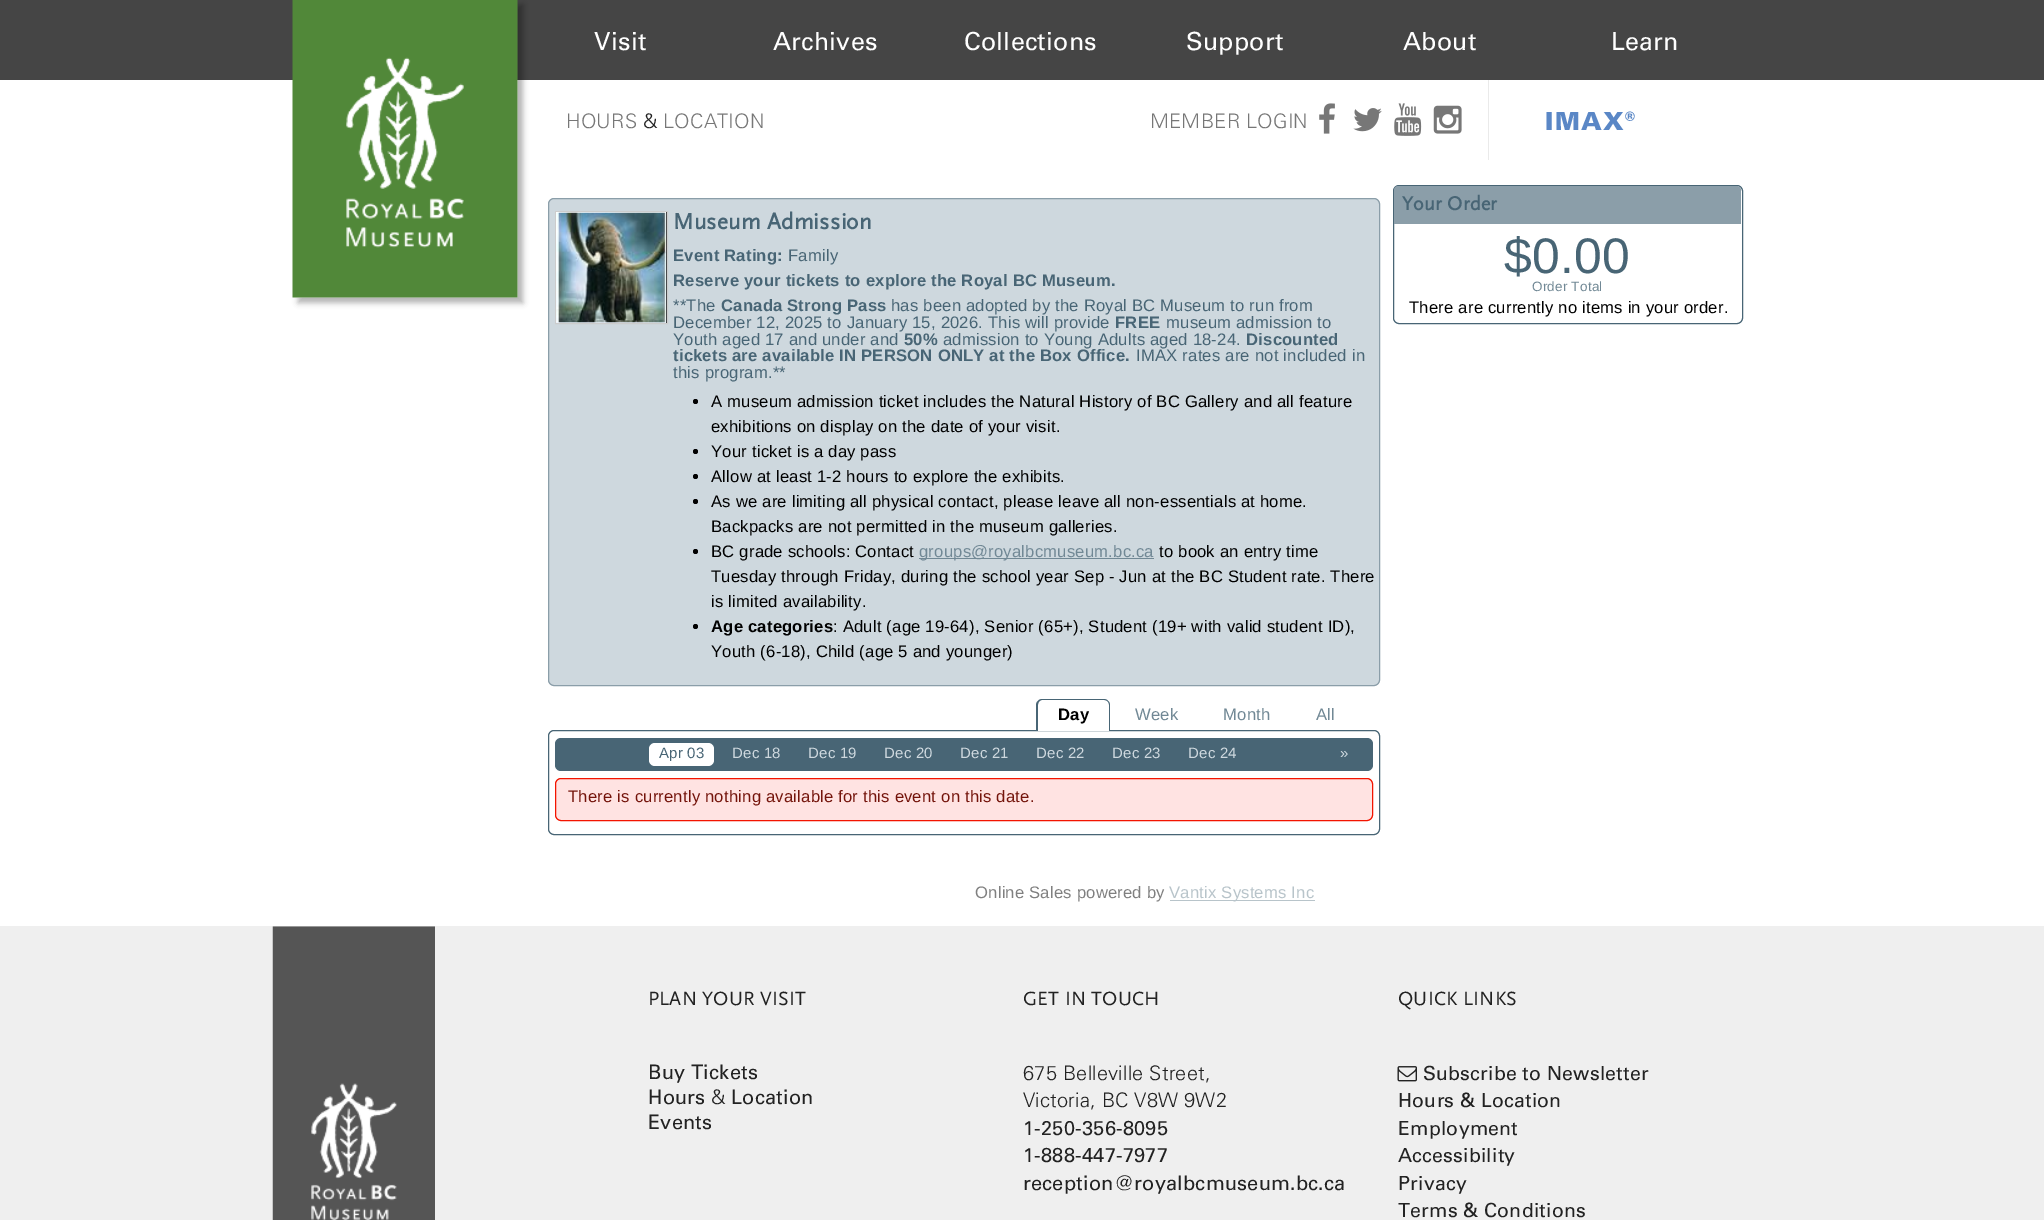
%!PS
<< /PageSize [2044 1220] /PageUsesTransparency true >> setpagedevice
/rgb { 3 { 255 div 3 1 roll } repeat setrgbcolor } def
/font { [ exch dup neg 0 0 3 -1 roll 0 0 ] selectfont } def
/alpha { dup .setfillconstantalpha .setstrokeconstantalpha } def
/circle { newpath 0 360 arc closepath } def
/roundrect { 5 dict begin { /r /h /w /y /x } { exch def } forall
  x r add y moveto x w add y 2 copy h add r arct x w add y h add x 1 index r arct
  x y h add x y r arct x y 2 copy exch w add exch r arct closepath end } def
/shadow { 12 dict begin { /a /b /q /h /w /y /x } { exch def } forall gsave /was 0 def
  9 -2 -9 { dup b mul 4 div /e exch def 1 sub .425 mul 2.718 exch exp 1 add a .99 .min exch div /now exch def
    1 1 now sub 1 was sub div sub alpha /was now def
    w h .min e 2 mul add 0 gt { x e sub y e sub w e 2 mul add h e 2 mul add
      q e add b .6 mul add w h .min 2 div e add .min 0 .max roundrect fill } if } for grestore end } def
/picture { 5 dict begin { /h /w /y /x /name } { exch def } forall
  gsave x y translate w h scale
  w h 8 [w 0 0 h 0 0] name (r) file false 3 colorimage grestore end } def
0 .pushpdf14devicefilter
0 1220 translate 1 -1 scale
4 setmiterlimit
255 255 255 rgb
0 0 2044 1220 rectfill
69 69 69 rgb
0 0 2044 80 rectfill
0 0 0 rgb
298 5 225 298 0 3 0.3 shadow
(img/1.rgb) 292 0 226 298 picture
(img/2.rgb) 1319 103 16 31 picture
(img/3.rgb) 1353 108 29 24 picture
(img/4.rgb) 1394 103 28 33 picture
(img/5.rgb) 1433 105 29 29 picture
234 234 234 rgb
1488 80 1 80 rectfill
206 216 222 rgb
548.5 198.5 831 487 5.5 roundrect gsave fill grestore
139 158 169 rgb
stroke
0 0 0 rgb
666 212 1 111 rectfill
(img/6.rgb) 556 212 111 111 picture
204 204 204 rgb
555.5 211.5 112 112 rectstroke
(img/7.rgb) 556 212 111 111 picture
0 0 0 rgb
695.5 401.5 2.5 circle fill
695.5 451.5 2.5 circle fill
695.5 476.5 2.5 circle fill
695.5 501.5 2.5 circle fill
695.5 551.5 2.5 circle fill
113 136 149 rgb
919 558 235 1 rectfill
0 0 0 rgb
695.5 626.5 2.5 circle fill
72 101 117 rgb
548.5 730.5 831 104 5.5 roundrect stroke
255 255 255 rgb
1043 700 moveto 1104 700 lineto 1107 700 1109 702 1109 705 curveto 1109 731 lineto 1038 731 lineto 1038 705 lineto 1038 702 1040 700 1043 700 curveto closepath fill
72 101 117 rgb
1042 699 moveto 1104 699 lineto 1107 699 1110 702 1110 705 curveto 1110 731 lineto 1036 731 lineto 1036 705 lineto 1036 702 1039 699 1042 699 curveto closepath 1042 700 moveto 1104 700 lineto 1107 700 1109 702 1109 705 curveto 1109 731 lineto 1038 731 lineto 1038 705 lineto 1038 702 1040 700 1042 700 curveto closepath eofill
555 738 818 33 6 roundrect fill
255 255 255 rgb
649 743 65 23 6 roundrect fill
255 227 226 rgb
555.5 778.5 817 42 5.5 roundrect gsave fill grestore
243 20 0 rgb
stroke
72 101 117 rgb
1393.5 185.5 349 138 5.5 roundrect stroke
139 158 169 rgb
1398 186 moveto 1737 186 lineto 1739 186 1741 188 1741 190 curveto 1741 224 lineto 1394 224 lineto 1394 190 lineto 1394 188 1396 186 1398 186 curveto closepath fill
184 196 202 rgb
1170 900 145 1 rectfill
239 239 239 rgb
0 926 2044 294 rectfill
(img/8.rgb) 272 926 163 294 picture
(img/9.rgb) 1397 1066 20 16 picture
/Univers-Regular 25 font
255 255 255 rgb
594 50 moveto 0.2 0 (Visit) ashow
773 50 moveto 0.2 0 (Archives) ashow
964 50 moveto 0.2 0 (Collections) ashow
1186 50 moveto 0.2 0 (Support) ashow
1403 50 moveto 0.2 0 (About) ashow
1611 50 moveto 0.2 0 (Learn) ashow
/Univers-Light 20 font
119 119 119 rgb
566 128 moveto 0.2 0 (HOURS) ashow
34 34 34 rgb
643 128 moveto 0.2 0 (&) ashow
119 119 119 rgb
663 128 moveto 0.2 0 (LOCATION) ashow
1150 128 moveto 0.2 0 (MEMBER LOGIN) ashow
/Univers-Black 25 font
90 135 198 rgb
1545 130 moveto 1.25 0 (IMAX®) ashow
/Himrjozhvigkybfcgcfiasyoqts-Bold 23.25 font
72 101 117 rgb
673 229 moveto 0.2 0 (Museum Admission) ashow
/LiberationSans-Bold 16.65 font
673 261 moveto 0.2 0 (Event Rating:) ashow
/LiberationSans-Regular 16.65 font
788 261 moveto 0.2 0 (Family) ashow
/LiberationSans-Bold 16.65 font
673 286 moveto 0.2 0 (Reserve your tickets to explore the Royal BC Museum.) ashow
/LiberationSans-Regular 16.65 font
673 311 moveto 0.2 0 (**The) ashow
/LiberationSans-Bold 16.65 font
721 311 moveto 0.2 0 (Canada Strong Pass) ashow
/LiberationSans-Regular 16.65 font
891 311 moveto 0.2 0 (has been adopted by the Royal BC Museum to run from) ashow
673 328 moveto 0.2 0 (December 12, 2025 to January 15, 2026. This will provide) ashow
/LiberationSans-Bold 16.65 font
1115 328 moveto 0.2 0 (FREE) ashow
/LiberationSans-Regular 16.65 font
1166 328 moveto 0.2 0 (museum admission to) ashow
673 345 moveto 0.2 0 (Youth aged 17 and under and) ashow
/LiberationSans-Bold 16.65 font
904 345 moveto 0.2 0 (50%) ashow
/LiberationSans-Regular 16.65 font
943 345 moveto 0.2 0 (admission to Young Adults aged 18-24.) ashow
/LiberationSans-Bold 16.65 font
1246 345 moveto 0.2 0 (Discounted) ashow
673 361 moveto 0.2 0 (tickets are available IN PERSON ONLY at the Box Office.) ashow
/LiberationSans-Regular 16.65 font
1136 361 moveto 0.2 0 (IMAX rates are not included in) ashow
673 378 moveto 0.2 0 (this program.**) ashow
0 0 0 rgb
711 407 moveto 0.2 0 (A museum admission ticket includes the Natural History of BC Gallery and all feature) ashow
711 432 moveto 0.2 0 (exhibitions on display on the date of your visit.) ashow
711 457 moveto 0.2 0 (Your ticket is a day pass) ashow
711 482 moveto 0.2 0 (Allow at least 1-2 hours to explore the exhibits.) ashow
711 507 moveto 0.2 0 (As we are limiting all physical contact, please leave all non-essentials at home.) ashow
711 532 moveto 0.2 0 (Backpacks are not permitted in the museum galleries.) ashow
711 557 moveto 0.2 0 (BC grade schools: Contact) ashow
113 136 149 rgb
919 557 moveto 0.2 0 (groups@royalbcmuseum.bc.ca) ashow
0 0 0 rgb
1159 557 moveto 0.2 0 (to book an entry time) ashow
711 582 moveto 0.2 0 (Tuesday through Friday, during the school year Sep - Jun at the BC Student rate. There) ashow
711 607 moveto 0.2 0 (is limited availability.) ashow
/LiberationSans-Bold 16.65 font
711 632 moveto 0.2 0 (Age categories) ashow
/LiberationSans-Regular 16.65 font
833 632 moveto 0.2 0 (: Adult \(age 19-64\), Senior \(65+\), Student \(19+ with valid student ID\),) ashow
711 657 moveto 0.2 0 (Youth \(6-18\), Child \(age 5 and younger\)) ashow
/LiberationSans-Bold 16.65 font
1058 720 moveto 0.2 0 (Day) ashow
/LiberationSans-Regular 16.65 font
113 136 149 rgb
1135 720 moveto 0.2 0 (Week) ashow
1223 720 moveto 0.2 0 (Month) ashow
1316 720 moveto 0.2 0 (All) ashow
/LiberationSans-Regular 15 font
72 101 117 rgb
659 758 moveto 0.2 0 (Apr 03) ashow
206 216 222 rgb
732 758 moveto 0.2 0 (Dec 18) ashow
808 758 moveto 0.2 0 (Dec 19) ashow
884 758 moveto 0.2 0 (Dec 20) ashow
960 758 moveto 0.2 0 (Dec 21) ashow
1036 758 moveto 0.2 0 (Dec 22) ashow
1112 758 moveto 0.2 0 (Dec 23) ashow
1188 758 moveto 0.2 0 (Dec 24) ashow
1340 758 moveto 0.2 0 (») ashow
/LiberationSans-Regular 16.65 font
116 20 11 rgb
568 802 moveto 0.2 0 (There is currently nothing available for this event on this date.) ashow
/Himrjozhvigkybfcgcfiasyoqts-Bold 20 font
72 101 117 rgb
1402 210 moveto 0.2 0 (Your Order) ashow
/LiberationSans-Regular 50 font
1504 273 moveto 0.2 0 ($0.00) ashow
/LiberationSans-Regular 13.5 font
113 136 149 rgb
1532 291 moveto 0.2 0 (Order Total) ashow
/LiberationSans-Regular 16.65 font
0 0 0 rgb
1409 313 moveto 0.2 0 (There are currently no items in your order.) ashow
128 128 128 rgb
975 898 moveto 0.2 0 (Online Sales powered by) ashow
184 196 202 rgb
1169 898 moveto 0.2 0 (Vantix Systems Inc) ashow
/Himrjozhvigkybfcgcfiasyoqts-Regular 20 font
34 34 34 rgb
648 1005 moveto 0.2 0 (PLAN YOUR VISIT) ashow
/Univers-Regular 20 font
648 1079 moveto 0.2 0 (Buy Tickets) ashow
648 1104 moveto 0.2 0 (Hours) ashow
/Univers-Light 20 font
711 1104 moveto 0.2 0 (&) ashow
/Univers-Regular 20 font
731 1104 moveto 0.2 0 (Location) ashow
648 1129 moveto 0.2 0 (Events) ashow
/Himrjozhvigkybfcgcfiasyoqts-Regular 20 font
1023 1005 moveto 0.2 0 (GET IN TOUCH) ashow
/Univers-Light 20 font
1023 1080 moveto 0.2 0 (675 Belleville Street,) ashow
1023 1107 moveto 0.2 0 (Victoria, BC V8W 9W2) ashow
/Univers-Regular 20 font
1023 1135 moveto 0.2 0 (1-250-356-8095) ashow
1023 1162 moveto 0.2 0 (1-888-447-7977) ashow
1023 1190 moveto 0.2 0 (reception@royalbcmuseum.bc.ca) ashow
/Himrjozhvigkybfcgcfiasyoqts-Regular 20 font
1398 1005 moveto 0.2 0 (QUICK LINKS) ashow
/Univers-Regular 19.5 font
1423 1080 moveto 0.2 0 (Subscribe to Newsletter) ashow
1398 1107 moveto 0.2 0 (Hours & Location) ashow
1398 1135 moveto 0.2 0 (Employment) ashow
1398 1162 moveto 0.2 0 (Accessibility) ashow
1398 1190 moveto 0.2 0 (Privacy) ashow
1398 1217 moveto 0.2 0 (Terms & Conditions) ashow
.poppdf14devicefilter showpage
